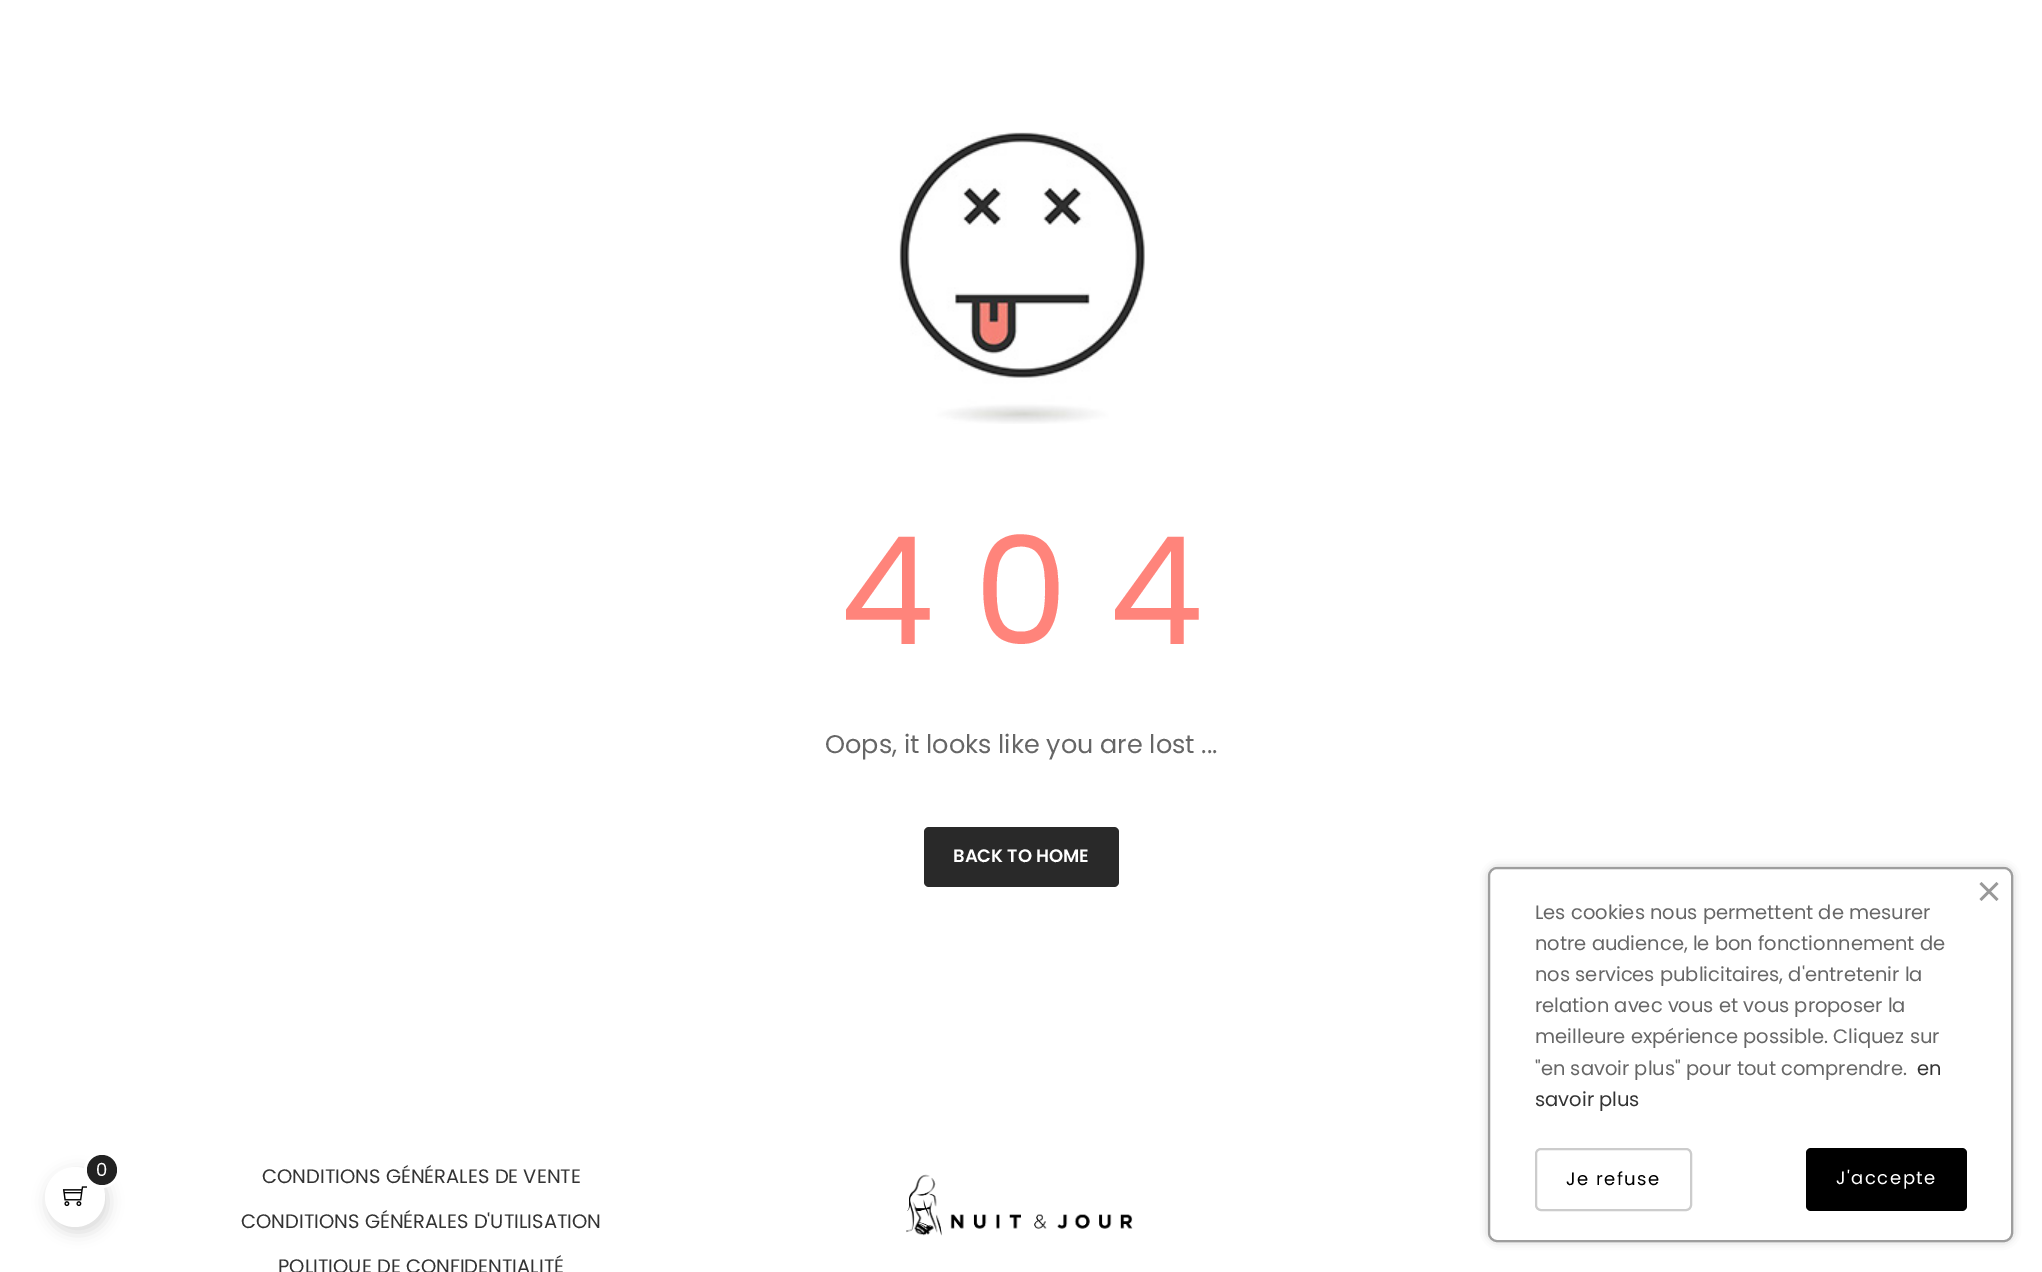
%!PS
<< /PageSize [2042 1272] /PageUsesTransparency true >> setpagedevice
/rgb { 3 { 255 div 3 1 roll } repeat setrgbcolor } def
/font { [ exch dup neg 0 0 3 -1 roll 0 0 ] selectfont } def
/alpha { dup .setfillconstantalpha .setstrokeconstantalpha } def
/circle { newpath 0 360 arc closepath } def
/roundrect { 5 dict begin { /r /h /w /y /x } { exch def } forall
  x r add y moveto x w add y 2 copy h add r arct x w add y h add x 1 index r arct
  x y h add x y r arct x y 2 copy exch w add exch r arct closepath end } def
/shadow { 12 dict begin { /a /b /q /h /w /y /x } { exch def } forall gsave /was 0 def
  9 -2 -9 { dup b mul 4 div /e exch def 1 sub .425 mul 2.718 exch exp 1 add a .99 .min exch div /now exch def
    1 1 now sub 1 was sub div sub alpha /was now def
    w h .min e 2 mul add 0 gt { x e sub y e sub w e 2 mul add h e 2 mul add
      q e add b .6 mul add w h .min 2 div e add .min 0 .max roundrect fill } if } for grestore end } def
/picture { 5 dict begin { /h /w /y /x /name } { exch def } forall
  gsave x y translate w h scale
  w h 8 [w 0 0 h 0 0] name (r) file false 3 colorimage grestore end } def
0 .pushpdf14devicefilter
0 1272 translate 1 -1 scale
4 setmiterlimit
255 255 255 rgb
0 0 2042 1272 rectfill
0 0 0 rgb
48 1172 60 60 30 7.5 0.15 shadow
255 255 255 rgb
75 1197 30 circle fill
(img/1.rgb) 62 1186 25 21 picture
3 setlinewidth
102 1170 16.5 circle stroke
34 34 34 rgb
102 1170 15 circle fill
(img/2.rgb) 899 132 246 292 picture
41 41 41 rgb
924 827 195 60 5 roundrect fill
(img/3.rgb) 906 1174 227 62 picture
158 158 158 rgb
1491 870 519 369 6 5 1 shadow
255 255 255 rgb
1489 868 523 373 8 roundrect gsave fill grestore
158 158 158 rgb
2 setlinewidth
stroke
153 153 153 rgb
1979.5 899 moveto 1996.5 882 lineto 1998.5 884 lineto 1981.5 901 lineto closepath fill
1981.5 882 moveto 1998.5 899 lineto 1996.5 901 lineto 1979.5 884 lineto closepath fill
204 204 204 rgb
1536 1149 155 61 5 roundrect stroke
0 0 0 rgb
1806 1148 161 63 5 roundrect fill
/Poppins-Regular 18 font
255 255 255 rgb
96 1176 moveto (0) show
/Poppins-Regular 150 font
255 132 123 rgb
840 644 moveto (4 0 4) show
/Poppins-Regular 25.5 font
102 102 102 rgb
825 753 moveto (Oops, it looks like you are lost ...) show
/Poppins-SemiBold 18 font
255 255 255 rgb
953 862 moveto (BACK TO HOME) show
/Poppins-Regular 19.5 font
51 51 51 rgb
[
  [(CONDITIONS GÉNÉRALES DE VENTE) 262 1183]
  [(CONDITIONS GÉNÉRALES D'UTILISATION) 241 1228]
  [(POLITIQUE DE CONFIDENTIALITÉ) 278 1273]
] { aload pop moveto show } forall
102 102 102 rgb
[
  [(Les cookies nous permettent de mesurer) 1535 919]
  [(notre audience, le bon fonctionnement de) 1535 950]
  [(nos services publicitaires, d'entretenir la) 1535 981]
  [(relation avec vous et vous proposer la) 1535 1012]
  [(meilleure expérience possible. Cliquez sur) 1535 1043]
  [("en savoir plus" pour tout comprendre.) 1535 1075]
] { aload pop moveto show } forall
51 51 51 rgb
1917 1075 moveto (en) show
1535 1106 moveto (savoir plus) show
/Poppins-Regular 18 font
0 0 0 rgb
1566 1185 moveto 1.5 0 (Je refuse) ashow
255 255 255 rgb
1836 1184 moveto 1.5 0 (J'accepte) ashow
.poppdf14devicefilter showpage
